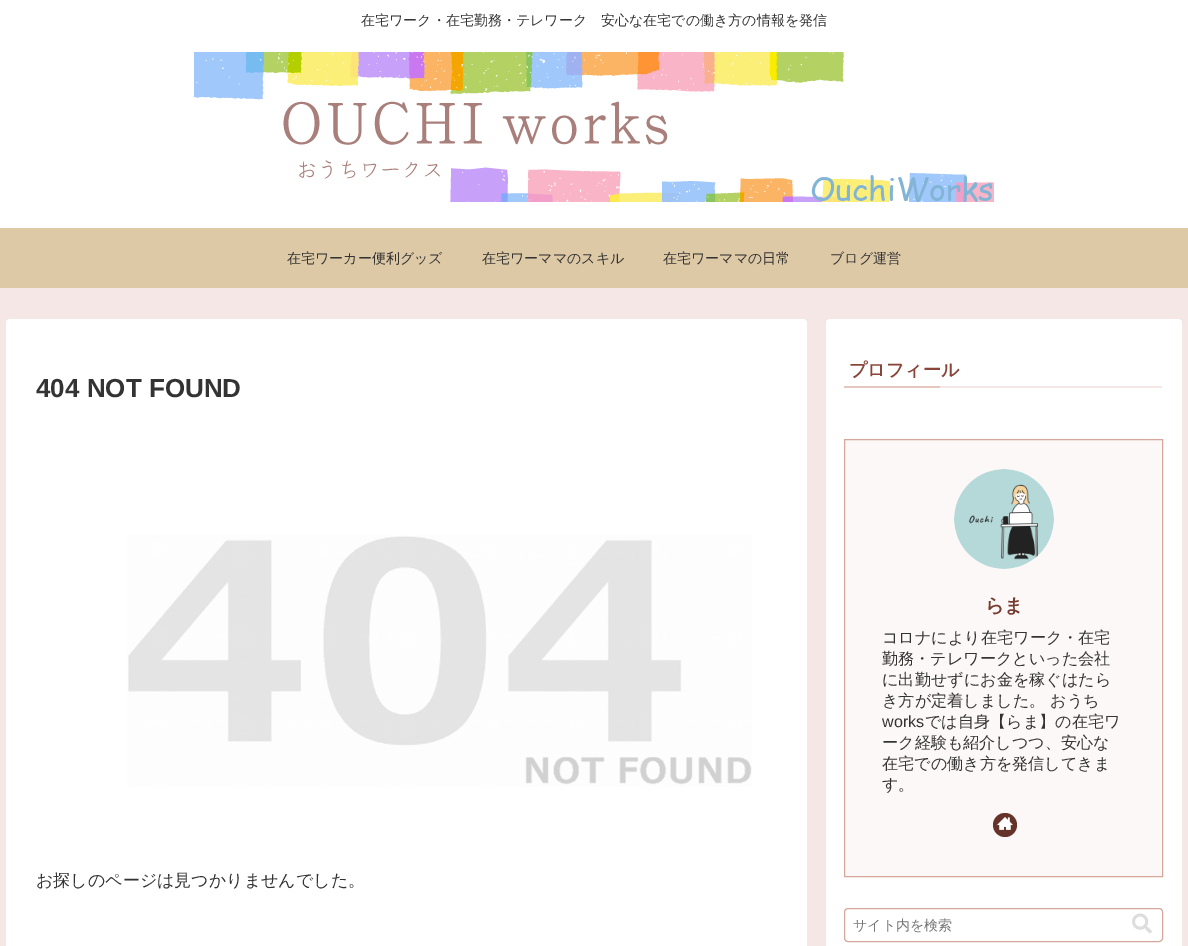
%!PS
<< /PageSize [1188 946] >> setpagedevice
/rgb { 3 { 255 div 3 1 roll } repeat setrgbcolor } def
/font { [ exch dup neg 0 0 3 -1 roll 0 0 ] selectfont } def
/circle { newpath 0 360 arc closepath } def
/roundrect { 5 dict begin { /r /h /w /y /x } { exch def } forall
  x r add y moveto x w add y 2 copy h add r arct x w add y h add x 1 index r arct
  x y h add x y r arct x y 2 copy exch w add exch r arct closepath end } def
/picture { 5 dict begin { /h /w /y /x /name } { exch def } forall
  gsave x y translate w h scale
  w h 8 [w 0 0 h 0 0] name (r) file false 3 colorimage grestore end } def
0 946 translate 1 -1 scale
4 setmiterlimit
244 231 229 rgb
0 0 1188 946 rectfill
255 255 255 rgb
0 0 1188 228 rectfill
(img/1.rgb) 194 52 800 150 picture
221 201 166 rgb
0 228 1188 60 rectfill
255 255 255 rgb
6 319 801 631 4 roundrect fill
(img/2.rgb) 127 535 625 252 picture
826 319 356 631 4 roundrect fill
244 231 229 rgb
940 386 222 2 rectfill
230 199 192 rgb
844 386 96 2 rectfill
252 248 247 rgb
844.5 439.5 moveto 1162.5 439.5 lineto 1162.5 876.5 lineto 844.5 876.5 lineto closepath gsave fill grestore
215 166 156 rgb
stroke
(img/3.rgb) 954 469 100 100 picture
101 51 41 rgb
1005 825 12 circle fill
(img/4.rgb) 997 817 16 13 picture
215 166 156 rgb
844.5 908.5 318 33 3.5 roundrect stroke
(img/5.rgb) 1132 913 20 21 picture
/WenQuanYiZenHei-Medium 14 font
51 51 51 rgb
[
  [(在宅ワーク・在宅勤務・テレワーク　安心な在宅での働き方の情報を発信) 361 25]
  [(在宅ワーカー便利グッズ) 287 263]
  [(在宅ワーママのスキル) 482 263]
  [(在宅ワーママの日常) 663 263]
  [(ブログ運営) 830 263]
] { aload pop moveto show } forall
/LiberationSans-Bold 26 font
36 397 moveto (404 NOT FOUND) show
/WenQuanYiZenHei-Medium 17 font
36 886 moveto (お探しのページは見つかりませんでした。) show
/WenQuanYiZenHei-Bold 18 font
137 69 55 rgb
849 376 moveto (プロフィール) show
/WenQuanYiZenHei-Bold 19 font
119 60 48 rgb
985 612 moveto (らま) show
/WenQuanYiZenHei-Medium 16.1 font
51 51 51 rgb
[
  [(コロナにより在宅ワーク・在宅) 882 643]
  [(勤務・テレワークといった会社) 882 664]
  [(に出勤せずにお金を稼ぐはたら) 882 685]
  [(き方が定着しました。 おうち) 882 706]
] { aload pop moveto show } forall
/LiberationSans-Regular 16.1 font
882 727 moveto (works) show
/WenQuanYiZenHei-Medium 16.1 font
[
  [(では自身【らま】の在宅ワ) 925 727]
  [(ーク経験も紹介しつつ、安心な) 882 748]
  [(在宅での働き方を発信してきま) 882 769]
  [(す。) 882 790]
] { aload pop moveto show } forall
/WenQuanYiZenHei-Medium 14 font
117 117 117 rgb
853 930 moveto (サイト内を検索) show
showpage
